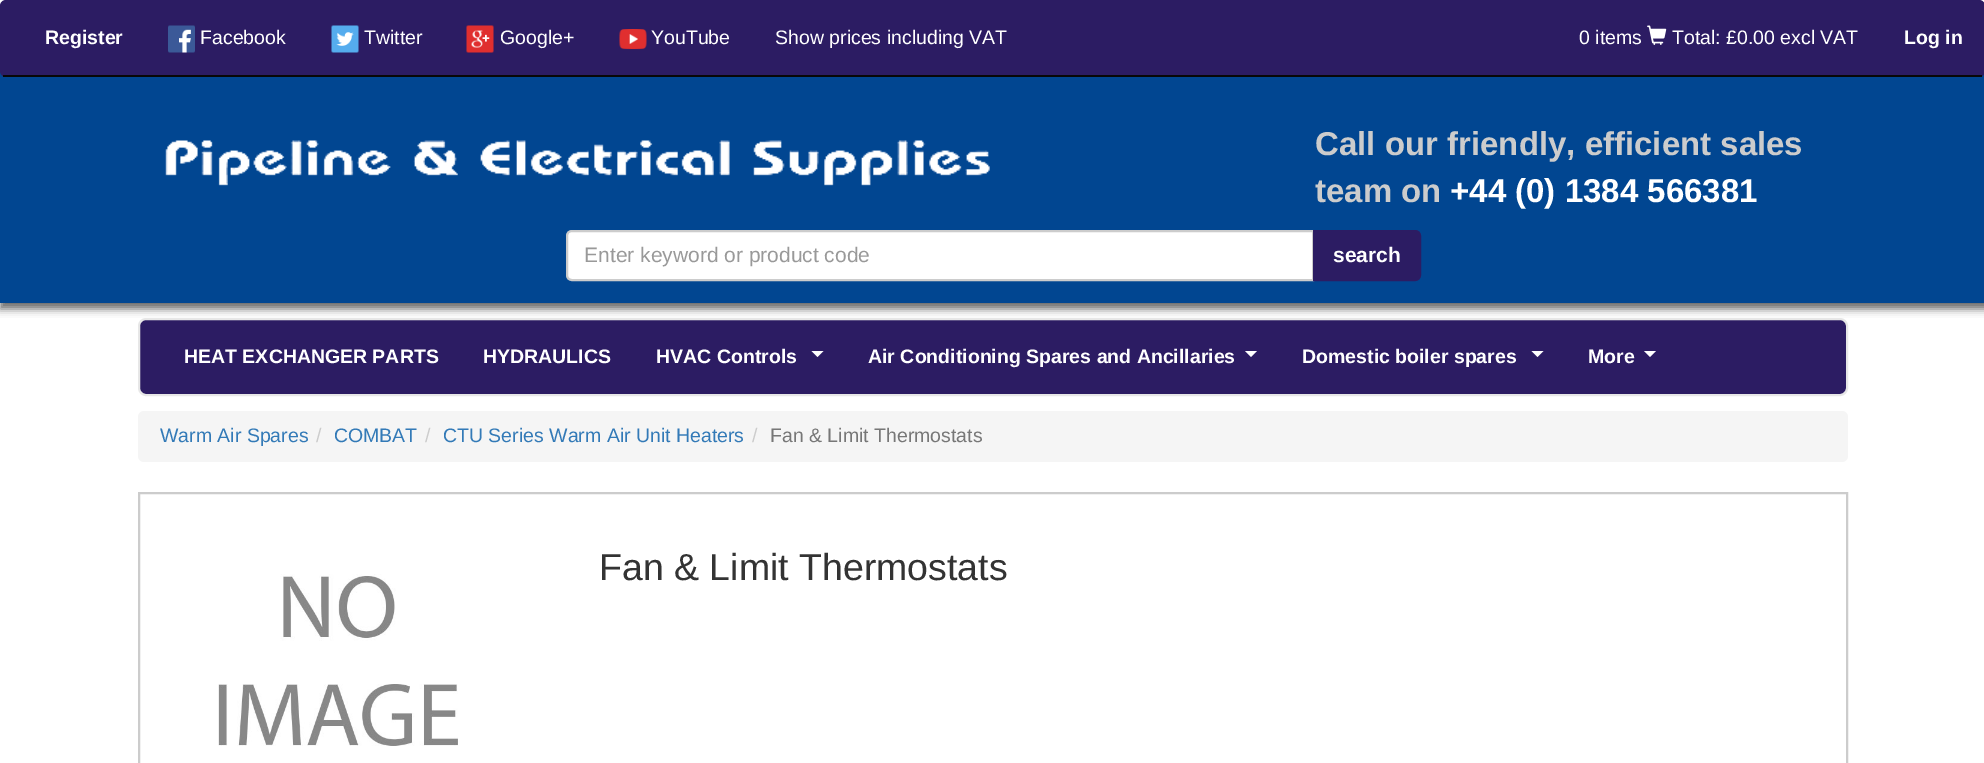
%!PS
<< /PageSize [1984 763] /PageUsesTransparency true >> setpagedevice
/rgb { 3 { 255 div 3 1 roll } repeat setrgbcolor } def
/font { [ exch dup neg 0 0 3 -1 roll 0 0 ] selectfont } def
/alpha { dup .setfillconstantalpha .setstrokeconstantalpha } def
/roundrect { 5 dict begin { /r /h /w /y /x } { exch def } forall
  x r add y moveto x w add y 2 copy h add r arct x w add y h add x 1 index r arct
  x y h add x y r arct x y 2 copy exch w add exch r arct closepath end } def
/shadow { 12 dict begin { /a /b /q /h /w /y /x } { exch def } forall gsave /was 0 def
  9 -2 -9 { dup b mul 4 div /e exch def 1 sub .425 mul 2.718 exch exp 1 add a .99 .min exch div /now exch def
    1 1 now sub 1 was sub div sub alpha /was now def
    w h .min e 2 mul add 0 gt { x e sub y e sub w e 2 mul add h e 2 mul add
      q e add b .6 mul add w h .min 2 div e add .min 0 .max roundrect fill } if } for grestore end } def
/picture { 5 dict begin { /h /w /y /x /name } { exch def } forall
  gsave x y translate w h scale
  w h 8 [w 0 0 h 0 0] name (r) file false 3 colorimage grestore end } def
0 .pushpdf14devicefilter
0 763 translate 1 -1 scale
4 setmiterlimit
255 255 255 rgb
0 0 1984 763 rectfill
105 105 105 rgb
0 60 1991 249 0 4 1 shadow
1 70 145 rgb
0 71 1984 232 rectfill
44 28 99 rgb
0 0 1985 77 6 roundrect fill
8 8 8 rgb
3 75 1979 2 rectfill
(img/1.rgb) 168 25 27 28 picture
(img/2.rgb) 331 25 28 28 picture
(img/3.rgb) 466 25 28 28 picture
(img/4.rgb) 619 29 28 21 picture
(img/5.rgb) 1647 25 20 20 picture
(img/6.rgb) 165 140 825 46 picture
255 255 255 rgb
572 231 moveto 1313 231 lineto 1313 280 lineto 572 280 lineto 569 280 567 278 567 275 curveto 567 236 lineto 567 233 569 231 572 231 curveto closepath gsave fill grestore
204 204 204 rgb
2 setlinewidth
stroke
44 28 99 rgb
1314 231 moveto 1415 231 lineto 1418 231 1420 233 1420 236 curveto 1420 275 lineto 1420 278 1418 280 1415 280 curveto 1314 280 lineto closepath gsave fill grestore
stroke
139 319 1708 76 7 roundrect gsave fill grestore
231 231 231 rgb
stroke
255 255 255 rgb
811.5 351 moveto 823.5 351 lineto 817.5 357 lineto closepath fill
1245 351 moveto 1257 351 lineto 1251 357 lineto closepath fill
1531.5 351 moveto 1543.5 351 lineto 1537.5 357 lineto closepath fill
1644 351 moveto 1656 351 lineto 1650 357 lineto closepath fill
245 245 245 rgb
138 411 1710 51 6 roundrect fill
204 204 204 rgb
139 493 1708 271 rectstroke
(img/7.rgb) 218 574 240 172 picture
/LiberationSans-Bold 19.5 font
255 255 255 rgb
45 44 moveto (Register) show
/LiberationSans-Regular 19.5 font
[
  [(Facebook) 200 44]
  [(Twitter) 364 44]
  [(Google+) 500 44]
  [(YouTube) 651 44]
  [(Show prices including VAT) 775 44]
  [(0 items) 1579 44]
  [(Total: £0.00 excl VAT) 1672 44]
] { aload pop moveto show } forall
/LiberationSans-Bold 19.5 font
1904 44 moveto (Log in) show
/LiberationSans-Bold 33 font
204 204 204 rgb
1315 155 moveto (Call our friendly, efficient sales) show
1315 202 moveto (team on) show
255 255 255 rgb
1450 202 moveto (+44 \(0\) 1384 566381) show
/LiberationSans-Regular 21 font
153 153 153 rgb
584 262 moveto (Enter keyword or product code) show
/LiberationSans-Bold 21 font
255 255 255 rgb
1333 262 moveto (search) show
/LiberationSans-Bold 19.5 font
[
  [(HEAT EXCHANGER PARTS) 184 363]
  [(HYDRAULICS) 483 363]
  [(HVAC Controls) 656 363]
  [(Air Conditioning Spares and Ancillaries) 868 363]
  [(Domestic boiler spares) 1302 363]
  [(More) 1588 363]
] { aload pop moveto show } forall
/LiberationSans-Regular 19.5 font
51 122 183 rgb
160 442 moveto (Warm Air Spares) show
204 204 204 rgb
316 442 moveto (/) show
51 122 183 rgb
334 442 moveto (COMBAT) show
204 204 204 rgb
425 442 moveto (/) show
51 122 183 rgb
443 442 moveto (CTU Series Warm Air Unit Heaters) show
204 204 204 rgb
752 442 moveto (/) show
119 119 119 rgb
770 442 moveto (Fan & Limit Thermostats) show
/LiberationSans-Regular 37.5 font
51 51 51 rgb
599 580 moveto (Fan & Limit Thermostats) show
.poppdf14devicefilter showpage
